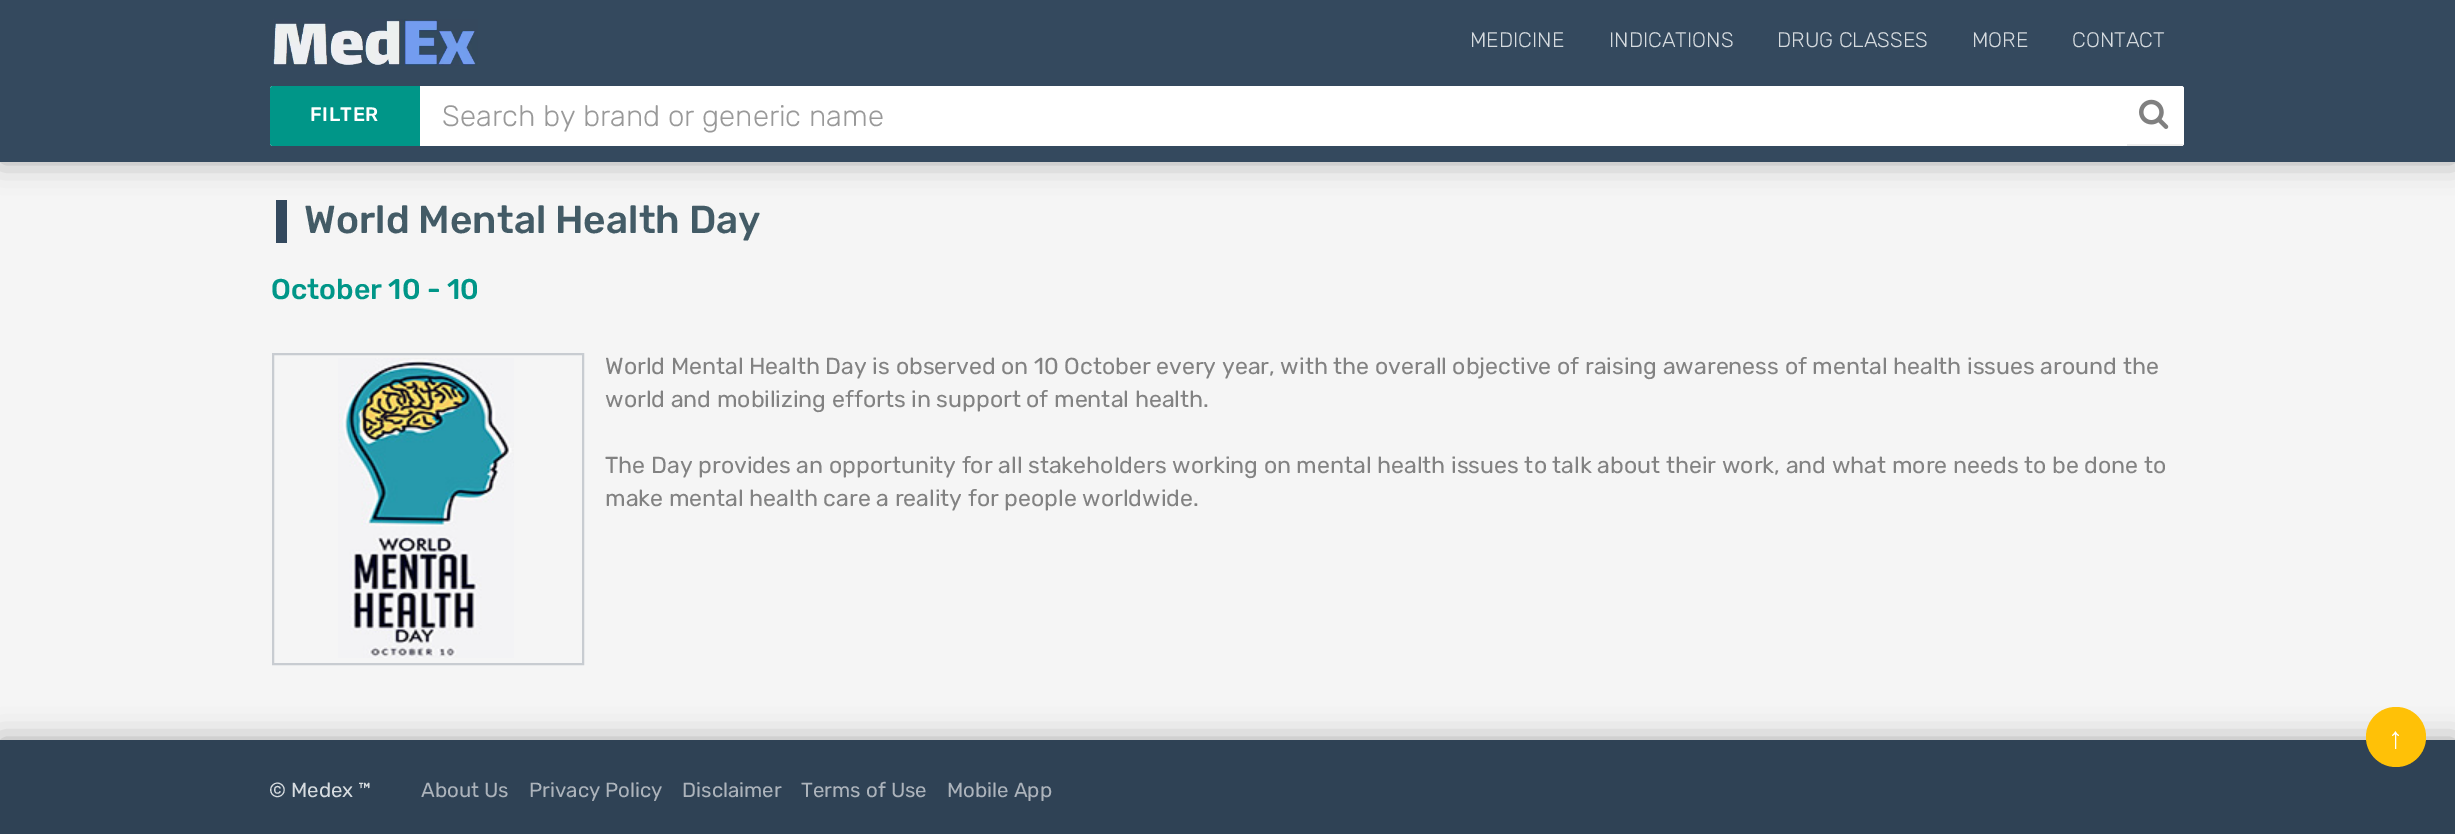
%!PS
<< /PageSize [2455 834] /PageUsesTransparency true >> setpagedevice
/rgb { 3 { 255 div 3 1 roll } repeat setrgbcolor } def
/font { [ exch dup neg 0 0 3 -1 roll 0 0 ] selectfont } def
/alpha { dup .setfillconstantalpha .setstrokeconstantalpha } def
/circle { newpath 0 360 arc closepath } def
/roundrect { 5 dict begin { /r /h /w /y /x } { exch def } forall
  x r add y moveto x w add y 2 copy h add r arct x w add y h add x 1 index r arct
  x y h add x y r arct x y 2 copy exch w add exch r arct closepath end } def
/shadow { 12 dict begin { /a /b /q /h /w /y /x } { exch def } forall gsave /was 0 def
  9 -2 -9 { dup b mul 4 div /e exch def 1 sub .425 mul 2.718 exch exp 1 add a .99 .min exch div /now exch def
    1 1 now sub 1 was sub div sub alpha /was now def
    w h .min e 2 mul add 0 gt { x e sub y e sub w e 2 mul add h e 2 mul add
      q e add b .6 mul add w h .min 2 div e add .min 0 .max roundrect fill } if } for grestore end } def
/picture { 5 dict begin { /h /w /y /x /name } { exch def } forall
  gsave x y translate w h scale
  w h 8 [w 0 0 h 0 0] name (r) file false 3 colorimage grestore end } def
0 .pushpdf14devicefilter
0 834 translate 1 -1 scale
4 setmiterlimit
245 245 245 rgb
0 0 2455 834 rectfill
0 0 0 rgb
0 -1 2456 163 0 15 0.3 shadow
52 73 94 rgb
0 0 2455 162 rectfill
(img/1.rgb) 273 19 205 47 picture
255 255 255 rgb
270 86 1914 60 3 roundrect fill
0 150 136 rgb
273 86 moveto 420 86 lineto 420 146 lineto 273 146 lineto 271.5 146 270 144.5 270 143 curveto 270 89 lineto 270 87.5 271.5 86 273 86 curveto closepath fill
255 255 255 rgb
2127 86 moveto 2181 86 lineto 2182.5 86 2184 87.5 2184 89 curveto 2184 143 lineto 2184 144.5 2182.5 146 2181 146 curveto 2127 146 lineto closepath fill
238 238 238 rgb
2127 144 56 2 rectfill
(img/2.rgb) 2139 99 30 30 picture
52 73 94 rgb
276 200 11 43 rectfill
200 204 209 rgb
2 setlinewidth
273 354 310 310 rectstroke
(img/3.rgb) 338 358 176 300 picture
0 0 0 rgb
0 740 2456 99 0 15 0.3 shadow
47 66 85 rgb
0 740 2455 94 rectfill
255 193 7 rgb
2396 737 30 circle fill
/Rubik-Light 21 font
214 219 223 rgb
[
  [(MEDICINE) 1470 47]
  [(INDICATIONS) 1609 47]
  [(DRUG CLASSES) 1777 47]
  [(MORE) 1972 47]
  [(CONTACT) 2072 47]
] { aload pop moveto show } forall
/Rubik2-Light 19.5 font
255 255 255 rgb
310 121 moveto 0.5 0 (FILTER) ashow
/Rubik-Light 29.4 font
153 153 153 rgb
442 126 moveto (Search by brand or generic name) show
/Rubik2-Light 39 font
67 91 102 rgb
304 233 moveto (World Mental Health Day) show
/Rubik2-Light 28.5 font
0 150 136 rgb
271 299 moveto (October 10 - 10) show
/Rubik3-Light 23.1 font
130 130 130 rgb
[
  [(World Mental Health Day is observed on 10 October every year, with the overall objective of raising awareness of mental health issues around the) 605 374]
  [(world and mobilizing efforts in support of mental health.) 605 407]
  [(The Day provides an opportunity for all stakeholders working on mental health issues to talk about their work, and what more needs to be done to) 605 473]
  [(make mental health care a reality for people worldwide.) 605 506]
] { aload pop moveto show } forall
/LiberationSans-Regular 30 font
255 255 255 rgb
2388 748 moveto (↑) show
/Rubik3-Light 20.5 font
214 219 223 rgb
269 797 moveto (© Medex ™) show
172 179 187 rgb
[
  [(About Us) 421 797]
  [(Privacy Policy) 529 797]
  [(Disclaimer) 682 797]
  [(Terms of Use) 801 797]
  [(Mobile App) 947 797]
] { aload pop moveto show } forall
.poppdf14devicefilter showpage
